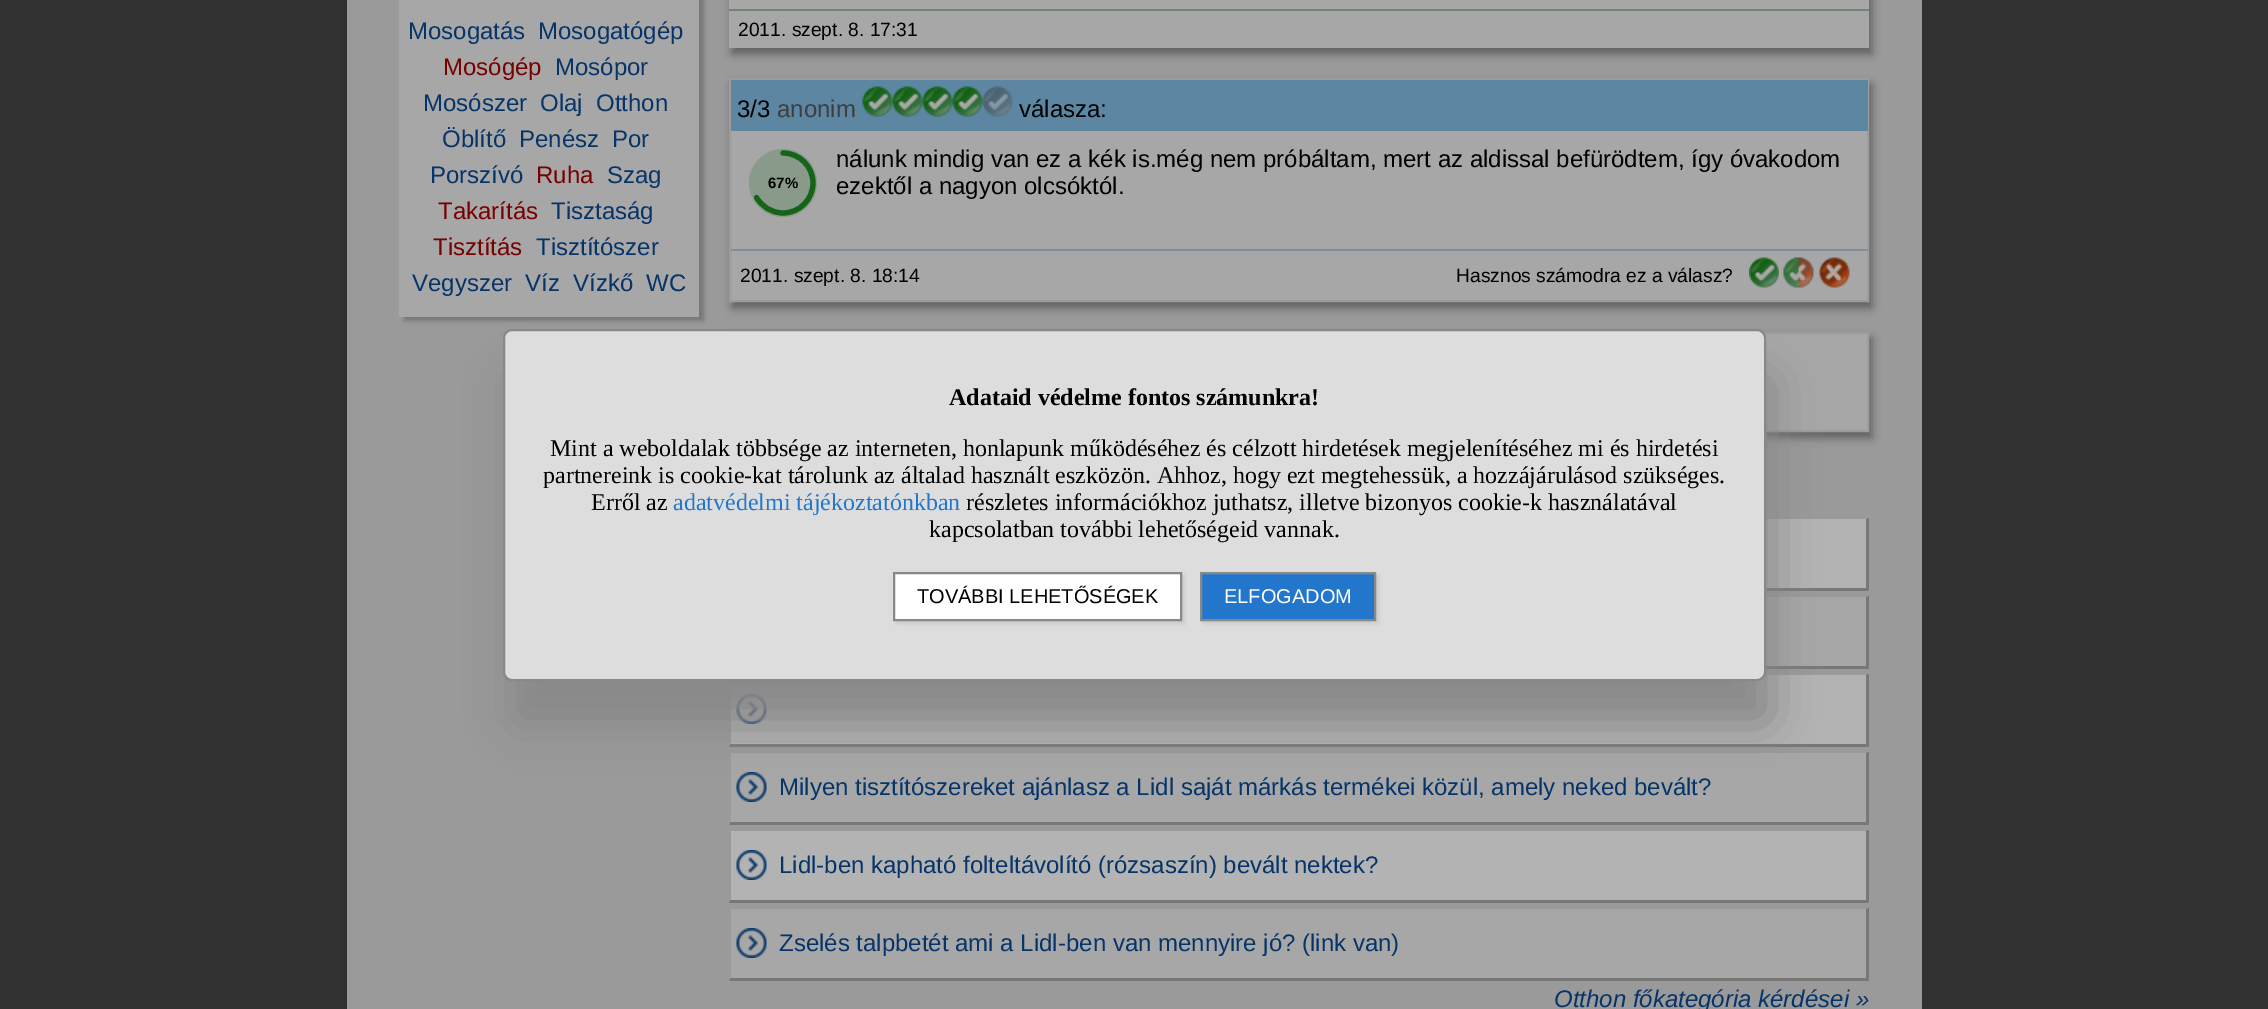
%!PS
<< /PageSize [2268 1009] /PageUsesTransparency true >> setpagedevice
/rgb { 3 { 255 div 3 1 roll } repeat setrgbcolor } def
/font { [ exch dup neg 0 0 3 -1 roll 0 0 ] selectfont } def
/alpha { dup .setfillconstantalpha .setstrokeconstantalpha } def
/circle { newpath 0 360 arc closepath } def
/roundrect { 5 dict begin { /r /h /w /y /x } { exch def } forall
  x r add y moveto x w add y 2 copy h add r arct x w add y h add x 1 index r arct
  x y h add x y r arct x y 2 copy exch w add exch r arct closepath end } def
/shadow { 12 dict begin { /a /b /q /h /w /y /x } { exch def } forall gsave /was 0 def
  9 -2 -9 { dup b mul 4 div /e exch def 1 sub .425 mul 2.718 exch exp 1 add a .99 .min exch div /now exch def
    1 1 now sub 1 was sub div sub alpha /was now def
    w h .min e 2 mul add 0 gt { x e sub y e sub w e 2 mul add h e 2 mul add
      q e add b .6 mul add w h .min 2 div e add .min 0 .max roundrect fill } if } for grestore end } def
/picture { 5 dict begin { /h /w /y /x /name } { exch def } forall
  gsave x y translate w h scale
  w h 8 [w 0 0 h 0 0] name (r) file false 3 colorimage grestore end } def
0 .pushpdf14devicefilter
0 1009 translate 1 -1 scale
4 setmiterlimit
49 49 49 rgb
0 0 2268 1009 rectfill
154 154 154 rgb
347 0 1575 1009 rectfill
119 119 119 rgb
404 -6 300 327 0 2 1 shadow
167 167 167 rgb
399 0 300 317 rectfill
95 95 95 rgb
732 -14 1140 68 0 4.5 1 shadow
167 167 167 rgb
729 0 1140 48 rectfill
113 134 115 rgb
729 9 1140 2 rectfill
95 95 95 rgb
732 84 1140 224 0 4.5 1 shadow
167 167 167 rgb
731 131 1136 169 rectfill
156 156 156 rgb
2 setlinewidth
730 79 1138 222 rectstroke
92 134 162 rgb
731 80 1137 51 rectfill
(img/1.rgb) 862 86 31 31 picture
(img/2.rgb) 892 86 31 31 picture
(img/2.rgb) 922 86 31 31 picture
(img/2.rgb) 952 86 31 31 picture
(img/3.rgb) 982 86 31 31 picture
137 154 138 rgb
783 183 34 circle fill
22 99 26 rgb
5.2 setlinewidth
1 setlinecap
783 153 moveto 799.5 153 813 166.5 813 183 curveto 813 199.5 799.5 213 783 213 curveto 771.5 213 762 206.5 756.5 197.5 curveto stroke
127 144 156 rgb
731 249 1137 2 rectfill
(img/4.rgb) 1749 257 30 31 picture
(img/5.rgb) 1783 257 31 31 picture
(img/6.rgb) 1819 257 31 31 picture
95 95 95 rgb
732 338 1140 100 0 4.5 1 shadow
167 167 167 rgb
1765 334 102 96 rectfill
156 156 156 rgb
2 setlinewidth
0 setlinecap
730 333 1138 98 rectstroke
179 179 179 rgb
1766 519 100 69 rectfill
119 119 119 rgb
1869 518 moveto 1869 591 lineto 1866 588 lineto 1866 519 lineto closepath fill
1869 591 moveto 729 591 lineto 730 588 lineto 1866 588 lineto closepath fill
167 167 167 rgb
1766 597 100 69 rectfill
119 119 119 rgb
1869 596 moveto 1869 669 lineto 1866 666 lineto 1866 597 lineto closepath fill
1869 669 moveto 729 669 lineto 730 666 lineto 1866 666 lineto closepath fill
179 179 179 rgb
731 675 1135 69 rectfill
119 119 119 rgb
1869 674 moveto 1869 747 lineto 1866 744 lineto 1866 675 lineto closepath fill
1869 747 moveto 729 747 lineto 730 744 lineto 1866 744 lineto closepath fill
155 155 155 rgb
729 747 moveto 729 674 lineto 730 675 lineto 730 744 lineto closepath fill
(img/7.rgb) 736 694 31 30 picture
167 167 167 rgb
731 753 1135 69 rectfill
119 119 119 rgb
1869 752 moveto 1869 825 lineto 1866 822 lineto 1866 753 lineto closepath fill
1869 825 moveto 729 825 lineto 730 822 lineto 1866 822 lineto closepath fill
155 155 155 rgb
729 825 moveto 729 752 lineto 730 753 lineto 730 822 lineto closepath fill
(img/8.rgb) 736 772 31 30 picture
179 179 179 rgb
731 831 1135 69 rectfill
119 119 119 rgb
1869 830 moveto 1869 903 lineto 1866 900 lineto 1866 831 lineto closepath fill
1869 903 moveto 729 903 lineto 730 900 lineto 1866 900 lineto closepath fill
155 155 155 rgb
729 903 moveto 729 830 lineto 730 831 lineto 730 900 lineto closepath fill
(img/7.rgb) 736 850 31 30 picture
167 167 167 rgb
731 909 1135 69 rectfill
119 119 119 rgb
1869 908 moveto 1869 981 lineto 1866 978 lineto 1866 909 lineto closepath fill
1869 981 moveto 729 981 lineto 730 978 lineto 1866 978 lineto closepath fill
155 155 155 rgb
729 981 moveto 729 908 lineto 730 909 lineto 730 978 lineto closepath fill
(img/8.rgb) 736 928 31 30 picture
136 136 136 rgb
510 374 1263 352 9 22.5 1 shadow
221 221 221 rgb
504 330 1261 350 8 roundrect gsave fill grestore
136 136 136 rgb
stroke
205 205 205 rgb
896 575 289 49 0 1.5 1 shadow
255 255 255 rgb
894 573 moveto 1181 573 lineto 1181 620 lineto 894 620 lineto closepath gsave fill grestore
136 136 136 rgb
stroke
205 205 205 rgb
1203 575 176 49 0 1.5 1 shadow
34 119 204 rgb
1201 573 moveto 1375 573 lineto 1375 620 lineto 1201 620 lineto closepath gsave fill grestore
136 136 136 rgb
stroke
/LiberationSans-Regular 24 font
6 52 104 rgb
408 39 moveto (Mosogatás) show
538 39 moveto (Mosogatógép) show
119 0 0 rgb
443 75 moveto (Mosógép) show
6 52 104 rgb
[
  [(Mosópor) 555 75]
  [(Mosószer) 423 111]
  [(Olaj) 540 111]
  [(Otthon) 596 111]
  [(Öblítő) 442 147]
  [(Penész) 519 147]
  [(Por) 612 147]
  [(Porszívó) 430 183]
] { aload pop moveto show } forall
119 0 0 rgb
536 183 moveto (Ruha) show
6 52 104 rgb
607 183 moveto (Szag) show
119 0 0 rgb
438 219 moveto (Takarítás) show
6 52 104 rgb
551 219 moveto (Tisztaság) show
119 0 0 rgb
433 255 moveto (Tisztítás) show
6 52 104 rgb
[
  [(Tisztítószer) 536 255]
  [(Vegyszer) 412 291]
  [(Víz) 525 291]
  [(Vízkő) 573 291]
  [(WC) 646 291]
] { aload pop moveto show } forall
/LiberationSans-Regular 19.25 font
0 0 0 rgb
738 36 moveto (2011. szept. 8. 17:31) show
/LiberationSans-Regular 24 font
737 117 moveto (3/3) show
62 62 62 rgb
777 117 moveto (anonim) show
0 0 0 rgb
1019 117 moveto (válasza:) show
/LiberationSans-Bold 15 font
768 188 moveto (67%) show
/LiberationSans-Regular 24 font
836 167 moveto (nálunk mindig van ez a kék is.még nem próbáltam, mert az aldissal befürödtem, így óvakodom) show
836 194 moveto (ezektől a nagyon olcsóktól.) show
/LiberationSans-Regular 19.25 font
740 282 moveto (2011. szept. 8. 18:14) show
1456 282 moveto (Hasznos számodra ez a válasz?) show
/LiberationSans-Regular 24 font
6 52 104 rgb
[
  [(Milyen tisztítószereket ajánlasz a Lidl saját márkás termékei közül, amely neked bevált?) 779 795]
  [(Lidl-ben kapható folteltávolító \(rózsaszín\) bevált nektek?) 779 873]
  [(Zselés talpbetét ami a Lidl-ben van mennyire jó? \(link van\)) 779 951]
] { aload pop moveto show } forall
/LiberationSans-Italic 24 font
1554 1007 moveto (Otthon főkategória kérdései ») show
/LiberationSerif-Bold 24 font
0 0 0 rgb
949 405 moveto (Adataid védelme fontos számunkra!) show
/LiberationSerif-Regular 24 font
[
  [(Mint a weboldalak többsége az interneten, honlapunk működéséhez és célzott hirdetések megjelenítéséhez mi és hirdetési) 550 456]
  [(partnereink is cookie-kat tárolunk az általad használt eszközön. Ahhoz, hogy ezt megtehessük, a hozzájárulásod szükséges.) 543 483]
  [(Erről az) 591 510]
] { aload pop moveto show } forall
34 119 204 rgb
673 510 moveto (adatvédelmi tájékoztatónkban) show
0 0 0 rgb
966 510 moveto (részletes információkhoz juthatsz, illetve bizonyos cookie-k használatával) show
929 537 moveto (kapcsolatban további lehetőségeid vannak.) show
/LiberationSans-Regular 20 font
917 603 moveto (TOVÁBBI LEHETŐSÉGEK) show
255 255 255 rgb
1224 603 moveto (ELFOGADOM) show
.poppdf14devicefilter showpage
